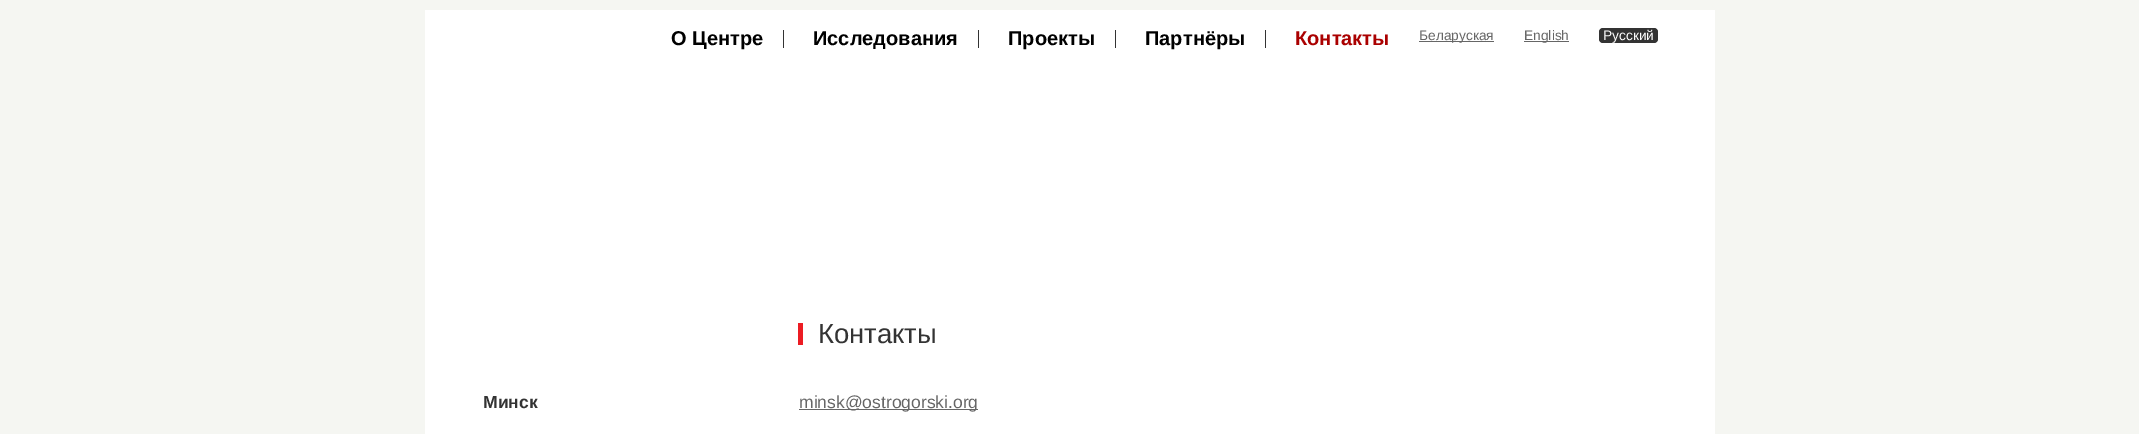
%!PS
<< /PageSize [2139 434] >> setpagedevice
/rgb { 3 { 255 div 3 1 roll } repeat setrgbcolor } def
/font { [ exch dup neg 0 0 3 -1 roll 0 0 ] selectfont } def
/roundrect { 5 dict begin { /r /h /w /y /x } { exch def } forall
  x r add y moveto x w add y 2 copy h add r arct x w add y h add x 1 index r arct
  x y h add x y r arct x y 2 copy exch w add exch r arct closepath end } def
0 434 translate 1 -1 scale
4 setmiterlimit
245 246 242 rgb
0 0 2139 434 rectfill
[
  [425 10 1290 424 255 255 255]
  [783 30 1 18 51 51 51]
  [978 30 1 18 51 51 51]
  [1115 30 1 18 51 51 51]
  [1265 30 1 18 51 51 51]
  [1419 41 75 1 102 102 102]
  [1524 41 45 1 102 102 102]
] { aload pop rgb rectfill } forall
51 51 51 rgb
1599 28 59 15 4 roundrect fill
236 28 35 rgb
798 323 5 22 rectfill
102 102 102 rgb
799 409 179 1 rectfill
/LiberationSans-Bold 20 font
0 0 0 rgb
[
  [(О Центре) 671 45]
  [(Исследования) 813 45]
  [(Проекты) 1008 45]
  [(Партнёры) 1145 45]
] { aload pop moveto show } forall
170 0 0 rgb
1295 45 moveto (Контакты) show
/LiberationSans-Regular 13.75 font
102 102 102 rgb
1419 40 moveto (Беларуская) show
1524 40 moveto (English) show
255 255 255 rgb
1603 40 moveto (Русский) show
/LiberationSans-Regular 27.5 font
51 51 51 rgb
818 343 moveto (Контакты) show
/LiberationSans-Bold 17.5 font
483 408 moveto (Минск) show
/LiberationSans-Regular 17.5 font
102 102 102 rgb
799 408 moveto (minsk@ostrogorski.org) show
showpage
